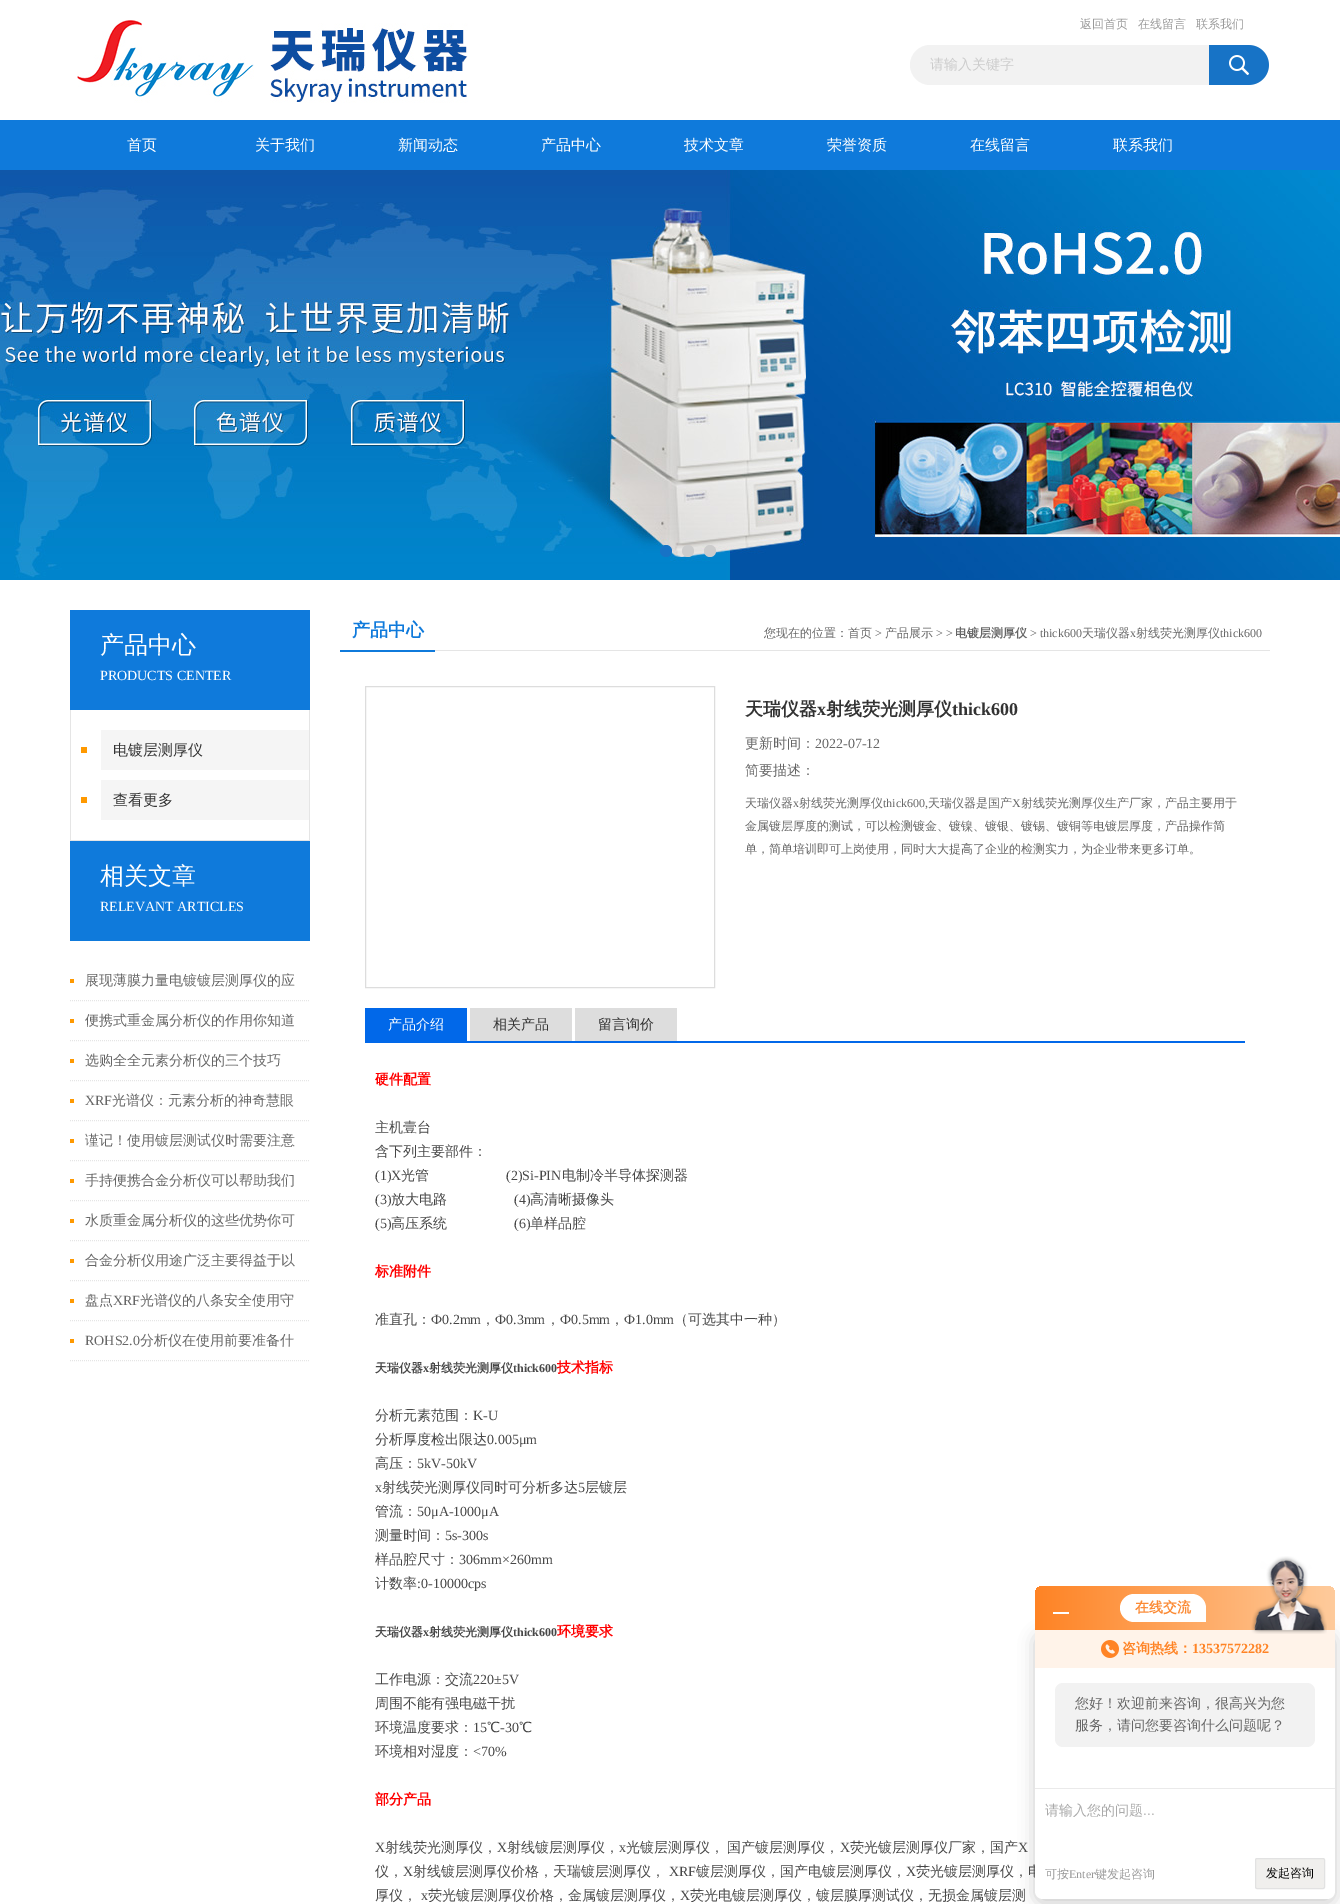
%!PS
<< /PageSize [1340 1904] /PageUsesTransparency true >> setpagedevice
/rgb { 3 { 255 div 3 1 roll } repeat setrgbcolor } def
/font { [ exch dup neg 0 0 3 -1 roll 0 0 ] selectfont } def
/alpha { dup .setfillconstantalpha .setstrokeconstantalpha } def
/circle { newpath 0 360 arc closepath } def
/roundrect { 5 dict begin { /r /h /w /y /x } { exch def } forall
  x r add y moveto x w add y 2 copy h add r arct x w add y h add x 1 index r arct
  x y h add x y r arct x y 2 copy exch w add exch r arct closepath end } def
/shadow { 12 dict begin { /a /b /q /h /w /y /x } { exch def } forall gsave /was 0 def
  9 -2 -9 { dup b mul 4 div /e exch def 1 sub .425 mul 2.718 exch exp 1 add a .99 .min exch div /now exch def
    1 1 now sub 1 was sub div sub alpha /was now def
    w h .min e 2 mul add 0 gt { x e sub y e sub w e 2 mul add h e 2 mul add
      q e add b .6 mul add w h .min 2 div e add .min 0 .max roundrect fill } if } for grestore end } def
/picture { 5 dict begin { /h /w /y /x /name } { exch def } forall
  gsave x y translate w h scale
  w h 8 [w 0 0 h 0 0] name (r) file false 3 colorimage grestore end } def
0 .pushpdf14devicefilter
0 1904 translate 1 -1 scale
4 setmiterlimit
255 255 255 rgb
0 0 1340 1904 rectfill
(img/1.rgb) 77 20 391 83 picture
242 242 242 rgb
930 45 moveto 1209 45 lineto 1209 85 lineto 930 85 lineto 919 85 910 76 910 65 curveto 910 54 919 45 930 45 curveto closepath fill
(img/2.rgb) 1209 45 60 40 picture
15 122 219 rgb
0 120 1340 50 rectfill
(img/3.rgb) 0 170 1340 410 picture
23 115 198 rgb
666 551 6 circle fill
204 204 204 rgb
688 551 6 circle fill
710 551 6 circle fill
[
  [70 610 240 100 15 122 219]
  [309 710 1 131 229 229 229]
  [70 840 240 1 229 229 229]
  [70 710 1 131 229 229 229]
  [81 747 6 6 255 153 0]
  [101 730 208 40 245 245 245]
  [81 797 6 6 255 153 0]
  [101 780 208 40 245 245 245]
  [70 841 240 100 15 122 219]
  [70 979 4 4 255 153 0]
] { aload pop rgb rectfill } forall
229 229 229 rgb
[1 1] 0 setdash
70 1000.5 moveto 310 1000.5 lineto stroke
255 153 0 rgb
70 1019 4 4 rectfill
229 229 229 rgb
70 1040.5 moveto 310 1040.5 lineto stroke
255 153 0 rgb
70 1059 4 4 rectfill
229 229 229 rgb
70 1080.5 moveto 310 1080.5 lineto stroke
255 153 0 rgb
70 1099 4 4 rectfill
229 229 229 rgb
70 1120.5 moveto 310 1120.5 lineto stroke
255 153 0 rgb
70 1139 4 4 rectfill
229 229 229 rgb
70 1160.5 moveto 310 1160.5 lineto stroke
255 153 0 rgb
70 1179 4 4 rectfill
229 229 229 rgb
70 1200.5 moveto 310 1200.5 lineto stroke
255 153 0 rgb
70 1219 4 4 rectfill
229 229 229 rgb
70 1240.5 moveto 310 1240.5 lineto stroke
255 153 0 rgb
70 1259 4 4 rectfill
229 229 229 rgb
70 1280.5 moveto 310 1280.5 lineto stroke
255 153 0 rgb
70 1299 4 4 rectfill
229 229 229 rgb
70 1320.5 moveto 310 1320.5 lineto stroke
255 153 0 rgb
70 1339 4 4 rectfill
229 229 229 rgb
70 1360.5 moveto 310 1360.5 lineto stroke
435 650 835 1 rectfill
15 122 219 rgb
340 650 95 2 rectfill
221 221 221 rgb
[] 0 setdash
365.5 686.5 349 301 rectstroke
[
  [365 1041 880 2 1 104 233]
  [365 1008 102 33 1 104 233]
  [470 1008 102 33 221 221 221]
  [575 1008 102 33 221 221 221]
] { aload pop rgb rectfill } forall
0 0 0 rgb
1035 1634 300 269 8 8 0.2 shadow
gsave 1043 1586 moveto 1327 1586 lineto 1331.5 1586 1335 1589.5 1335 1594 curveto 1335 1630 lineto 1035 1630 lineto 1035 1594 lineto 1035 1589.5 1038.5 1586 1043 1586 curveto closepath clip newpath
<< /ShadingType 2 /ColorSpace /DeviceRGB /Coords [1035 1608 1335 1608] /Extend [true true] /Function << /FunctionType 2 /Domain [0 1] /C0 [1 0.514 0.141] /C1 [0.996 0.796 0.612] /N 1 >> >> shfill grestore
255 255 255 rgb
1053 1612 16 2 rectfill
1134 1594 moveto 1192 1594 lineto 1199.5 1594 1206 1600.5 1206 1608 curveto 1206 1622 lineto 1134 1622 lineto 1126.5 1622 1120 1615.5 1120 1608 curveto 1120 1600.5 1126.5 1594 1134 1594 curveto closepath fill
/WenQuanYiZenHei-Medium 12 font
153 153 153 rgb
[
  [(返回首页) 1080 28]
  [(在线留言) 1138 28]
  [(联系我们) 1196 28]
] { aload pop moveto show } forall
/WenQuanYiZenHei-Medium 14 font
204 204 204 rgb
930 69 moveto (请输入关键字) show
/WenQuanYiZenHei-Medium 15 font
255 255 255 rgb
[
  [(首页) 127 150]
  [(关于我们) 255 150]
  [(新闻动态) 398 150]
  [(产品中心) 541 150]
  [(技术文章) 684 150]
  [(荣誉资质) 827 150]
  [(在线留言) 970 150]
  [(联系我们) 1113 150]
] { aload pop moveto show } forall
/WenQuanYiZenHei-Medium 24 font
100 653 moveto (产品中心) show
/LiberationSerif-Regular 14 font
100 680 moveto (PRODUCTS CENTER) show
/WenQuanYiZenHei-Medium 15 font
51 51 51 rgb
113 755 moveto (电镀层测厚仪) show
113 805 moveto (查看更多) show
/WenQuanYiZenHei-Medium 24 font
255 255 255 rgb
100 884 moveto (相关文章) show
/LiberationSerif-Regular 14 font
100 911 moveto (RELEVANT ARTICLES) show
/WenQuanYiZenHei-Medium 14 font
102 102 102 rgb
[
  [(展现薄膜力量电镀镀层测厚仪的应) 85 985]
  [(便携式重金属分析仪的作用你知道) 85 1025]
  [(选购全全元素分析仪的三个技巧) 85 1065]
] { aload pop moveto show } forall
/LiberationSerif-Regular 14 font
85 1105 moveto (XRF) show
/WenQuanYiZenHei-Medium 14 font
[
  [(光谱仪：元素分析的神奇慧眼) 112 1105]
  [(谨记！使用镀层测试仪时需要注意) 85 1145]
  [(手持便携合金分析仪可以帮助我们) 85 1185]
  [(水质重金属分析仪的这些优势你可) 85 1225]
  [(合金分析仪用途广泛主要得益于以) 85 1265]
  [(盘点) 85 1305]
] { aload pop moveto show } forall
/LiberationSerif-Regular 14 font
113 1305 moveto (XRF) show
/WenQuanYiZenHei-Medium 14 font
140 1305 moveto (光谱仪的八条安全使用守) show
/LiberationSerif-Regular 14 font
85 1345 moveto (ROHS2.0) show
/WenQuanYiZenHei-Medium 14 font
140 1345 moveto (分析仪在使用前要准备什) show
/WenQuanYiZenHei-Bold 18 font
15 122 219 rgb
352 636 moveto (产品中心) show
/WenQuanYiZenHei-Medium 12 font
102 102 102 rgb
764 637 moveto (您现在的位置：首页) show
/LiberationSerif-Regular 12 font
875 637 moveto (>) show
/WenQuanYiZenHei-Medium 12 font
885 637 moveto (产品展示) show
/LiberationSerif-Regular 12 font
936 637 moveto (> >) show
/WenQuanYiZenHei-Bold 12 font
955 637 moveto (电镀层测厚仪) show
/LiberationSerif-Regular 12 font
1030 637 moveto (> thick600) show
/WenQuanYiZenHei-Medium 12 font
1082 637 moveto (天瑞仪器) show
/LiberationSerif-Regular 12 font
1130 637 moveto (x) show
/WenQuanYiZenHei-Medium 12 font
1136 637 moveto (射线荧光测厚仪) show
/LiberationSerif-Regular 12 font
1220 637 moveto (thick600) show
/WenQuanYiZenHei-Bold 18 font
51 51 51 rgb
745 715 moveto (天瑞仪器) show
/LiberationSerif-Bold 18 font
817 715 moveto (x) show
/WenQuanYiZenHei-Bold 18 font
826 715 moveto (射线荧光测厚仪) show
/LiberationSerif-Bold 18 font
952 715 moveto (thick600) show
/WenQuanYiZenHei-Medium 14 font
102 102 102 rgb
745 748 moveto (更新时间：) show
/LiberationSerif-Regular 14 font
815 748 moveto (2022-07-12) show
/WenQuanYiZenHei-Medium 14 font
745 775 moveto (简要描述：) show
/WenQuanYiZenHei-Medium 12 font
745 807 moveto (天瑞仪器) show
/LiberationSerif-Regular 12 font
793 807 moveto (x) show
/WenQuanYiZenHei-Medium 12 font
799 807 moveto (射线荧光测厚仪) show
/LiberationSerif-Regular 12 font
883 807 moveto (thick600,) show
/WenQuanYiZenHei-Medium 12 font
928 807 moveto (天瑞仪器是国产) show
/LiberationSerif-Regular 12 font
1012 807 moveto (X) show
/WenQuanYiZenHei-Medium 12 font
[
  [(射线荧光测厚仪生产厂家，产品主要用于) 1021 807]
  [(金属镀层厚度的测试，可以检测镀金、镀镍、镀银、镀锡、镀铜等电镀层厚度，产品操作简) 745 830]
  [(单，简单培训即可上岗使用，同时大大提高了企业的检测实力，为企业带来更多订单。) 745 853]
] { aload pop moveto show } forall
/WenQuanYiZenHei-Medium 14 font
255 255 255 rgb
388 1029 moveto (产品介绍) show
51 51 51 rgb
493 1029 moveto (相关产品) show
598 1029 moveto (留言询价) show
/WenQuanYiZenHei-Bold 14 font
255 0 0 rgb
375 1084 moveto (硬件配置) show
/WenQuanYiZenHei-Medium 14 font
71 71 71 rgb
375 1132 moveto (主机壹台) show
375 1156 moveto (含下列主要部件：) show
/LiberationSerif-Regular 14 font
375 1180 moveto (\(1\)X) show
/WenQuanYiZenHei-Medium 14 font
401 1180 moveto (光管) show
/LiberationSerif-Regular 14 font
506 1180 moveto (\(2\)Si-PIN) show
/WenQuanYiZenHei-Medium 14 font
562 1180 moveto (电制冷半导体探测器) show
/LiberationSerif-Regular 14 font
375 1204 moveto (\(3\)) show
/WenQuanYiZenHei-Medium 14 font
391 1204 moveto (放大电路) show
/LiberationSerif-Regular 14 font
514 1204 moveto (\(4\)) show
/WenQuanYiZenHei-Medium 14 font
530 1204 moveto (高清晰摄像头) show
/LiberationSerif-Regular 14 font
375 1228 moveto (\(5\)) show
/WenQuanYiZenHei-Medium 14 font
391 1228 moveto (高压系统) show
/LiberationSerif-Regular 14 font
514 1228 moveto (\(6\)) show
/WenQuanYiZenHei-Medium 14 font
530 1228 moveto (单样品腔) show
/WenQuanYiZenHei-Bold 14 font
255 0 0 rgb
375 1276 moveto (标准附件) show
/WenQuanYiZenHei-Medium 14 font
71 71 71 rgb
375 1324 moveto (准直孔：) show
/LiberationSerif-Regular 14 font
431 1324 moveto (Ф0.2mm) show
/WenQuanYiZenHei-Medium 14 font
481 1324 moveto (，) show
/LiberationSerif-Regular 14 font
495 1324 moveto (Ф0.3mm) show
/WenQuanYiZenHei-Medium 14 font
546 1324 moveto (，) show
/LiberationSerif-Regular 14 font
560 1324 moveto (Ф0.5mm) show
/WenQuanYiZenHei-Medium 14 font
610 1324 moveto (，) show
/LiberationSerif-Regular 14 font
624 1324 moveto (Ф1.0mm) show
/WenQuanYiZenHei-Medium 14 font
674 1324 moveto (（可选其中一种）) show
/WenQuanYiZenHei-Bold 12 font
375 1372 moveto (天瑞仪器) show
/LiberationSerif-Bold 12 font
423 1372 moveto (x) show
/WenQuanYiZenHei-Bold 12 font
429 1372 moveto (射线荧光测厚仪) show
/LiberationSerif-Bold 12 font
513 1372 moveto (thick600) show
/WenQuanYiZenHei-Bold 14 font
255 0 0 rgb
557 1372 moveto (技术指标) show
/WenQuanYiZenHei-Medium 14 font
71 71 71 rgb
375 1420 moveto (分析元素范围：) show
/LiberationSerif-Regular 14 font
473 1420 moveto (K-U) show
/WenQuanYiZenHei-Medium 14 font
375 1444 moveto (分析厚度检出限达) show
/LiberationSerif-Regular 14 font
487 1444 moveto (0.005μm) show
/WenQuanYiZenHei-Medium 14 font
375 1468 moveto (高压：) show
/LiberationSerif-Regular 14 font
417 1468 moveto (5kV-50kV) show
375 1492 moveto (x) show
/WenQuanYiZenHei-Medium 14 font
382 1492 moveto (射线荧光测厚仪同时可分析多达) show
/LiberationSerif-Regular 14 font
578 1492 moveto (5) show
/WenQuanYiZenHei-Medium 14 font
585 1492 moveto (层镀层) show
375 1516 moveto (管流：) show
/LiberationSerif-Regular 14 font
417 1516 moveto (50μA-1000μA) show
/WenQuanYiZenHei-Medium 14 font
375 1540 moveto (测量时间：) show
/LiberationSerif-Regular 14 font
445 1540 moveto (5s-300s) show
/WenQuanYiZenHei-Medium 14 font
375 1564 moveto (样品腔尺寸：) show
/LiberationSerif-Regular 14 font
459 1564 moveto (306mm×260mm) show
/WenQuanYiZenHei-Medium 14 font
375 1588 moveto (计数率) show
/LiberationSerif-Regular 14 font
417 1588 moveto (:0-10000cps) show
/WenQuanYiZenHei-Bold 12 font
375 1636 moveto (天瑞仪器) show
/LiberationSerif-Bold 12 font
423 1636 moveto (x) show
/WenQuanYiZenHei-Bold 12 font
429 1636 moveto (射线荧光测厚仪) show
/LiberationSerif-Bold 12 font
513 1636 moveto (thick600) show
/WenQuanYiZenHei-Bold 14 font
255 0 0 rgb
557 1636 moveto (环境要求) show
/WenQuanYiZenHei-Medium 14 font
71 71 71 rgb
375 1684 moveto (工作电源：交流) show
/LiberationSerif-Regular 14 font
473 1684 moveto (220±5V) show
/WenQuanYiZenHei-Medium 14 font
375 1708 moveto (周围不能有强电磁干扰) show
375 1732 moveto (环境温度要求：) show
/LiberationSerif-Regular 14 font
473 1732 moveto (15) show
/WenQuanYiZenHei-Medium 14 font
487 1732 moveto (℃) show
/LiberationSerif-Regular 14 font
500 1732 moveto (-30) show
/WenQuanYiZenHei-Medium 14 font
519 1732 moveto (℃) show
375 1756 moveto (环境相对湿度：) show
/LiberationSerif-Regular 14 font
473 1756 moveto (<70%) show
/WenQuanYiZenHei-Bold 14 font
255 0 0 rgb
375 1804 moveto (部分产品) show
/LiberationSerif-Regular 14 font
71 71 71 rgb
375 1852 moveto (X) show
/WenQuanYiZenHei-Medium 14 font
385 1852 moveto (射线荧光测厚仪，) show
/LiberationSerif-Regular 14 font
497 1852 moveto (X) show
/WenQuanYiZenHei-Medium 14 font
507 1852 moveto (射线镀层测厚仪，) show
/LiberationSerif-Regular 14 font
619 1852 moveto (x) show
/WenQuanYiZenHei-Medium 14 font
626 1852 moveto -1 0 32 (光镀层测厚仪， 国产镀层测厚仪，) widthshow
/LiberationSerif-Regular 14 font
840 1852 moveto (X) show
/WenQuanYiZenHei-Medium 14 font
850 1852 moveto (荧光镀层测厚仪厂家，国产) show
/LiberationSerif-Regular 14 font
1018 1852 moveto (X) show
/WenQuanYiZenHei-Medium 14 font
375 1876 moveto (仪，) show
/LiberationSerif-Regular 14 font
403 1876 moveto (X) show
/WenQuanYiZenHei-Medium 14 font
413 1876 moveto (射线镀层测厚仪价格，天瑞镀层测厚仪，) show
/LiberationSerif-Regular 14 font
669 1876 moveto (XRF) show
/WenQuanYiZenHei-Medium 14 font
696 1876 moveto (镀层测厚仪，国产电镀层测厚仪，) show
/LiberationSerif-Regular 14 font
906 1876 moveto (X) show
/WenQuanYiZenHei-Medium 14 font
916 1876 moveto (荧光镀层测厚仪，电) show
375 1900 moveto (厚仪，) show
/LiberationSerif-Regular 14 font
421 1900 moveto (x) show
/WenQuanYiZenHei-Medium 14 font
428 1900 moveto (荧光镀层测厚仪价格，金属镀层测厚仪，) show
/LiberationSerif-Regular 14 font
680 1900 moveto (X) show
/WenQuanYiZenHei-Medium 14 font
690 1900 moveto (荧光电镀层测厚仪，镀层膜厚测试仪，无损金属镀层测) show
/WenQuanYiZenHei-Bold 14 font
251 139 54 rgb
1135 1612 moveto (在线交流) show
255 255 255 rgb
1035 1630 moveto 1335 1630 lineto 1335 1891 lineto 1335 1895.5 1331.5 1899 1327 1899 curveto 1043 1899 lineto 1038.5 1899 1035 1895.5 1035 1891 curveto closepath fill
255 243 233 rgb
1035 1630 300 38 rectfill
(img/4.rgb) 1251 1556 76 78 picture
(img/5.rgb) 1101 1640 18 18 picture
255 132 38 rgb
1122 1653 moveto (咨询热线：) show
/LiberationSerif-Bold 14 font
1192 1653 moveto (13537572282) show
242 242 242 rgb
1055 1683 260 64 8 roundrect fill
/WenQuanYiZenHei-Medium 14 font
102 102 102 rgb
1075 1708 moveto (您好！欢迎前来咨询，很高兴为您) show
1075 1730 moveto (服务，请问您要咨询什么问题呢？) show
234 234 234 rgb
1035 1788 300 1 rectfill
170 170 170 rgb
1045 1815 moveto (请输入您的问题) show
/LiberationSans-Regular 14 font
1143 1815 moveto (...) show
/WenQuanYiZenHei-Medium 12 font
153 153 153 rgb
1045 1878 moveto (可按) show
/LiberationSerif-Regular 12 font
1069 1878 moveto (Enter) show
/WenQuanYiZenHei-Medium 12 font
1095 1878 moveto (键发起咨询) show
240 239 237 rgb
1255.5 1858.5 69 30 1.5 roundrect gsave fill grestore
226 226 226 rgb
stroke
0 0 0 rgb
1266 1877 moveto (发起咨询) show
.poppdf14devicefilter showpage
